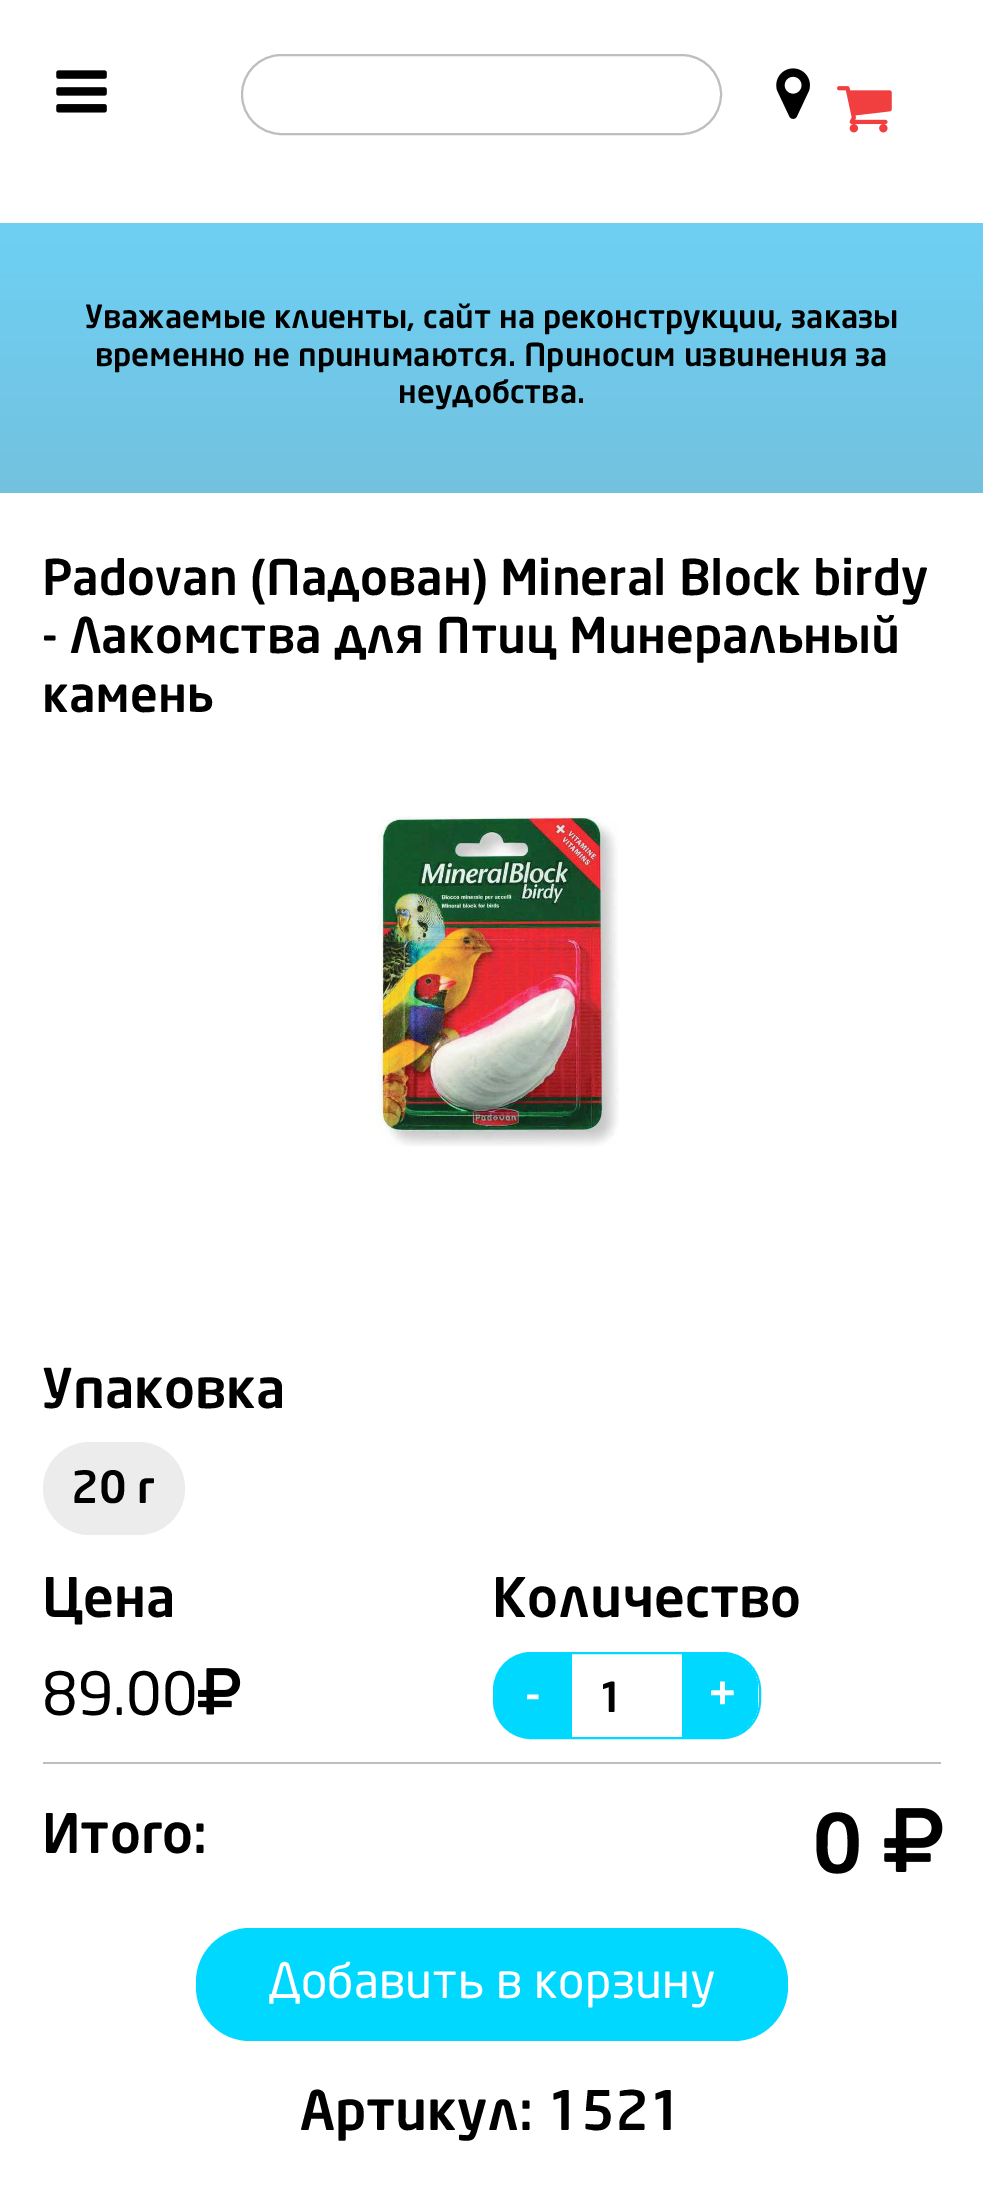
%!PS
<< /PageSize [983 2205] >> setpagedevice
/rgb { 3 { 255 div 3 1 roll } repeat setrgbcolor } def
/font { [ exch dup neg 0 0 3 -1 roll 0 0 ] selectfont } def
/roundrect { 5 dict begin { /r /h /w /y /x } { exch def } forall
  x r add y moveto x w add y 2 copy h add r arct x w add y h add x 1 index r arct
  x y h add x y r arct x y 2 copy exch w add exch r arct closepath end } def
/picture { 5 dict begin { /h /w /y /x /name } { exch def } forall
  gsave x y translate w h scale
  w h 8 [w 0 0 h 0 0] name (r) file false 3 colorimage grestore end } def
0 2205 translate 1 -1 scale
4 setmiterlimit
255 255 255 rgb
0 0 983 2205 rectfill
(img/1.rgb) 56 70 51 43 picture
190 190 190 rgb
2 setlinewidth
242 55 479 79 39.5 roundrect stroke
(img/2.rgb) 776 68 34 51 picture
(img/3.rgb) 837 86 55 47 picture
gsave 0 223 moveto 983 223 lineto 983 493 lineto 0 493 lineto closepath clip newpath
<< /ShadingType 2 /ColorSpace /DeviceRGB /Coords [492 223 492 493] /Extend [true true] /Function << /FunctionType 2 /Domain [0 1] /C0 [0.431 0.816 0.957] /C1 [0.451 0.761 0.875] /N 1 >> >> shfill grestore
(img/4.rgb) 376 816 243 331 picture
236 236 236 rgb
43 1442 142 93 46.5 roundrect fill
(img/5.rgb) 198 1668 43 47 picture
0 216 255 rgb
494 1653 266 85 37 roundrect stroke
gsave
495 1654 263 83 36 roundrect clip newpath
524 1654 moveto 572 1654 lineto 572 1742 lineto 524 1742 lineto 508 1742 495 1729 495 1713 curveto 495 1683 lineto 495 1667 508 1654 524 1654 curveto closepath fill
682 1654 moveto 732 1654 lineto 748 1654 761 1667 761 1683 curveto 761 1713 lineto 761 1729 748 1742 732 1742 curveto 682 1742 lineto closepath fill
grestore
190 190 190 rgb
43 1762 898 2 rectfill
(img/6.rgb) 884 1808 59 64 picture
0 216 255 rgb
196 1928 592 113 54 roundrect fill
/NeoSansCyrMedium-Medium 31.5 font
0 0 0 rgb
[
  [(Уважаемые клиенты, сайт на реконструкции, заказы) 85 328]
  [(временно не принимаются. Приносим извинения за) 95 366]
  [(неудобства.) 398 403]
] { aload pop moveto show } forall
/NeoSansCyrMedium-Medium 48.7 font
[
  [(Padovan \(Падован\) Mineral Block birdy) 42 595]
  [(- Лакомства для Птиц Минеральный) 42 653]
  [(камень) 42 712]
] { aload pop moveto show } forall
/NeoSansCyrMedium-Medium 54 font
42 1408 moveto (Упаковка) show
/NeoSansCyrMedium-Medium 44 font
71 1503 moveto (20 г) show
/NeoSansCyrMedium-Medium 54 font
42 1617 moveto (Цена) show
/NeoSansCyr-Regular 59 font
42 1715 moveto (89.00) show
/NeoSansCyrMedium-Medium 54 font
492 1617 moveto (Количество) show
/NeoSansCyrMedium-Medium 49 font
255 255 255 rgb
525 1712 moveto (-) show
707 1712 moveto (+) show
/NeoSansCyrMedium-Medium 41 font
0 0 0 rgb
598 1712 moveto (1) show
/NeoSansCyrMedium-Medium 54 font
42 1853 moveto (Итого:) show
/NeoSansCyrMedium-Medium 81 font
812 1873 moveto (0) show
/NeoSansCyr-Regular 48.25 font
255 255 255 rgb
268 1998 moveto (Добавить в корзину) show
/NeoSansCyrMedium-Medium 54 font
0 0 0 rgb
300 2130 moveto (Артикул: 1521) show
showpage
